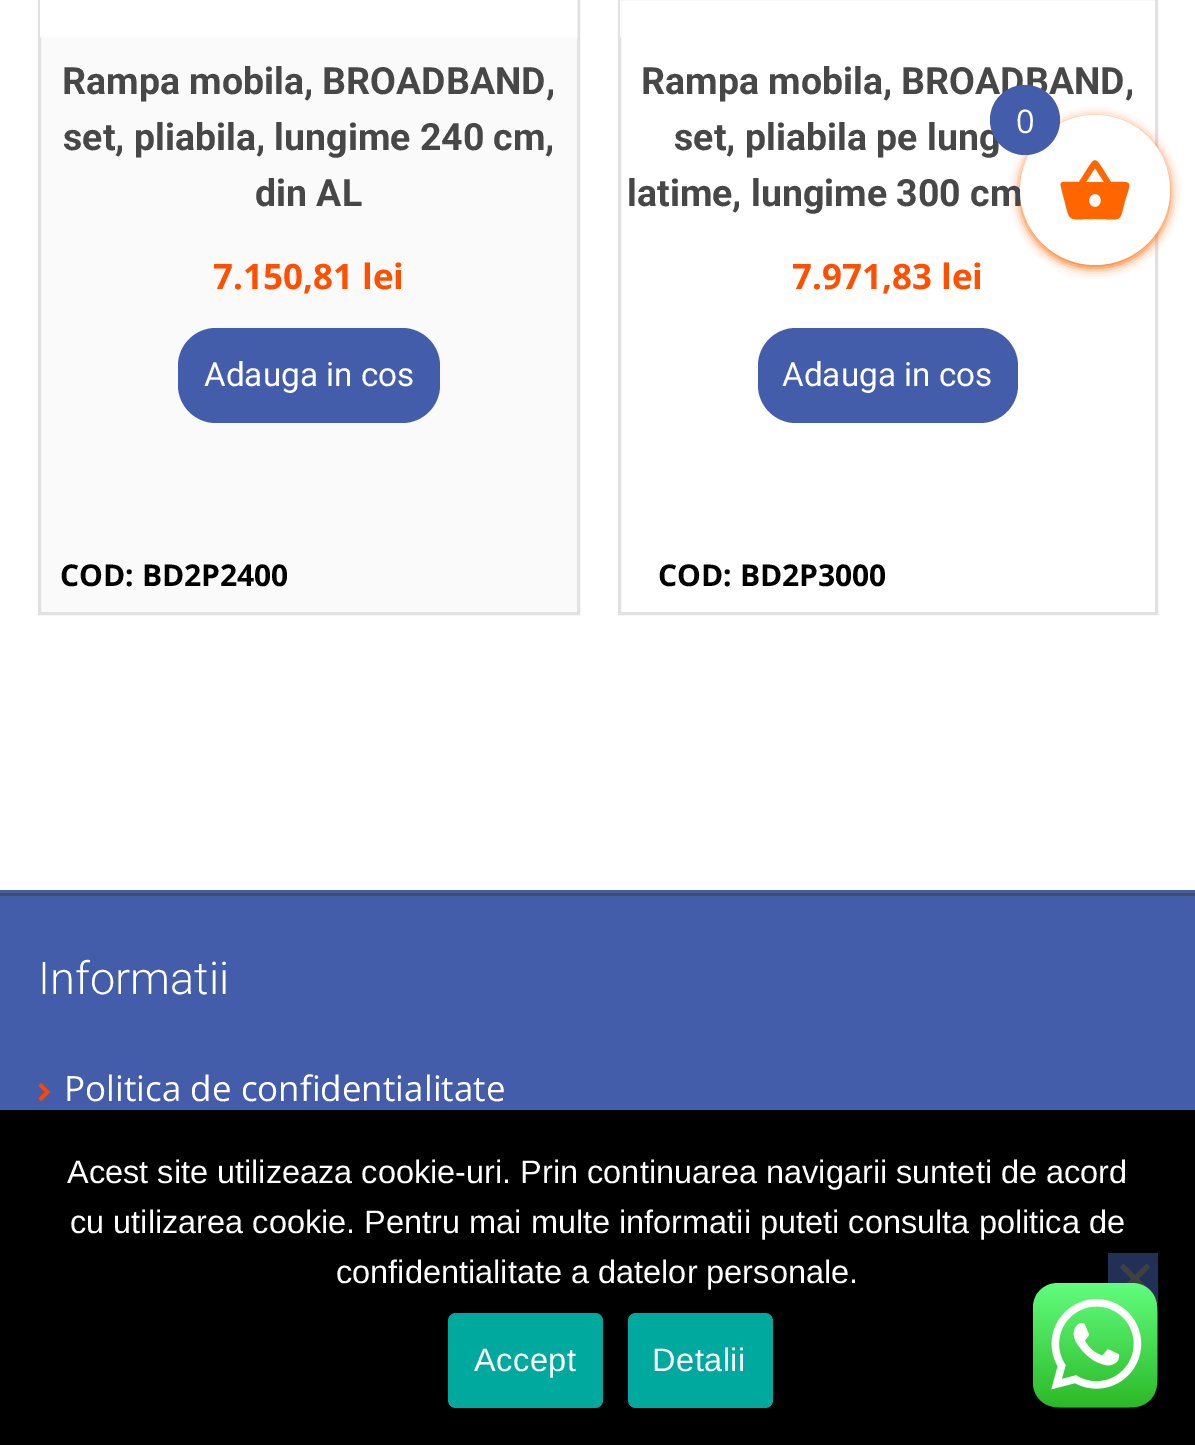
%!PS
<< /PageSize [1195 1445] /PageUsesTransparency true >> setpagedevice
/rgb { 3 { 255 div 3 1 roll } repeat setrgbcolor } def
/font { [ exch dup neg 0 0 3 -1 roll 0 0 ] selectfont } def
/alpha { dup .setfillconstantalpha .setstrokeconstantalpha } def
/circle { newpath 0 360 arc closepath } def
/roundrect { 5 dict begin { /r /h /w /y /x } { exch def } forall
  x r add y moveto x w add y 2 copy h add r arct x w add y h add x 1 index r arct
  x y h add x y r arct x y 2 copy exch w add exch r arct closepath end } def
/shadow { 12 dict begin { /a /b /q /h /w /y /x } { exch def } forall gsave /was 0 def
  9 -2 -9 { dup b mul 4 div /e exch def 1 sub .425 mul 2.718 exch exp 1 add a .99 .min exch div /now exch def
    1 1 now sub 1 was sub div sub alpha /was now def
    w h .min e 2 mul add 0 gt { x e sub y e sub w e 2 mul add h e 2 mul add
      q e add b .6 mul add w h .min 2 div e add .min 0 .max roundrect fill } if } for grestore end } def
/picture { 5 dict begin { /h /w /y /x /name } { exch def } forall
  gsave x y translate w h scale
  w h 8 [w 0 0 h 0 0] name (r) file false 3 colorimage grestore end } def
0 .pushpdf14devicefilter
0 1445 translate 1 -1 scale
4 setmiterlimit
255 255 255 rgb
0 0 1195 1445 rectfill
250 250 250 rgb
41 36 536 576 rectfill
225 225 225 rgb
3 setlinewidth
39.5 -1.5 539 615 rectstroke
(img/1.rgb) 40 0 538 38 picture
68 93 171 rgb
178 328 262 95 38 roundrect fill
225 225 225 rgb
619.5 -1.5 537 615 rectstroke
(img/2.rgb) 620 0 1 38 picture
68 93 171 rgb
758 328 260 95 38 roundrect fill
0 890 1195 220 rectfill
72 78 86 rgb
0 893 1195 3 rectfill
(img/3.rgb) 38 1083 12 19 picture
255 102 0 rgb
1020 118 150 150 75 5 1 shadow
0 0 0 rgb
0 1110 1195 335 rectfill
34 47 86 rgb
1108 1253 50 50 rectfill
64 64 64 rgb
1146.5 1263.5 moveto 1150 1267.5 lineto 1123.5 1294 lineto 1120 1290 lineto closepath fill
1120 1267.5 moveto 1123.5 1263.5 lineto 1150 1290 lineto 1146.5 1294 lineto closepath fill
0 169 157 rgb
448 1313 155 95 8 roundrect fill
628 1313 145 95 8 roundrect fill
(img/4.rgb) 1033 1283 125 125 picture
/Roboto-Bold 37.5 font
72 71 71 rgb
[
  [(Rampa mobila, BROADBAND,) 62 94]
  [(set, pliabila, lungime 240 cm,) 63 150]
  [(din AL) 255 206]
] { aload pop moveto show } forall
/OpenSans-Bold 35 font
255 79 0 rgb
213 289 moveto (7.150,81 lei) show
/Roboto-Regular 33.25 font
255 255 255 rgb
204 386 moveto (Adauga in cos) show
/OpenSans-Bold 30 font
0 0 0 rgb
60 586 moveto (COD: BD2P2400) show
/Roboto-Bold 37.5 font
72 71 71 rgb
[
  [(Rampa mobila, BROADBAND,) 641 94]
  [(set, pliabila pe lung) 674 150]
  [(latime, lungime 300 cm) 627 206]
] { aload pop moveto show } forall
/OpenSans-Bold 35 font
255 79 0 rgb
792 289 moveto (7.971,83 lei) show
/Roboto-Regular 33.25 font
255 255 255 rgb
782 386 moveto (Adauga in cos) show
/OpenSans-Bold 30 font
0 0 0 rgb
658 586 moveto (COD: BD2P3000) show
/Roboto-Light 45 font
255 255 255 rgb
38 994 moveto (Informatii) show
/OpenSans-Regular 35 font
64 1101 moveto (Politica de confidentialitate) show
1095 190 75 circle fill
68 93 171 rgb
1025 120 35 circle fill
/OpenSans-Regular 32.5 font
255 255 255 rgb
1016 133 moveto (0) show
255 102 0 rgb
1095 207 moveto 1103 207 1103 194 1095 194 curveto 1087 194 1087 207 1095 207 curveto closepath 1086 182 moveto 1104 182 lineto 1095 168 lineto closepath 1111 182 moveto 1134 182 1131 180 1125 201 curveto 1119 224 1123 219 1095 219 curveto 1065 219 1071 224 1063 195 curveto 1059 179 1058 182 1079 182 curveto 1098 153 1092 153 1111 182 curveto closepath fill
/LiberationSans-Regular 32.5 font
255 255 255 rgb
[
  [(Acest site utilizeaza cookie-uri. Prin continuarea navigarii sunteti de acord) 67 1183]
  [(cu utilizarea cookie. Pentru mai multe informatii puteti consulta politica de) 70 1233]
  [(confidentialitate a datelor personale.) 336 1283]
] { aload pop moveto show } forall
474 1371 moveto 0.5 0 (Accept) ashow
652 1371 moveto 0.5 0 (Detalii) ashow
.poppdf14devicefilter showpage
